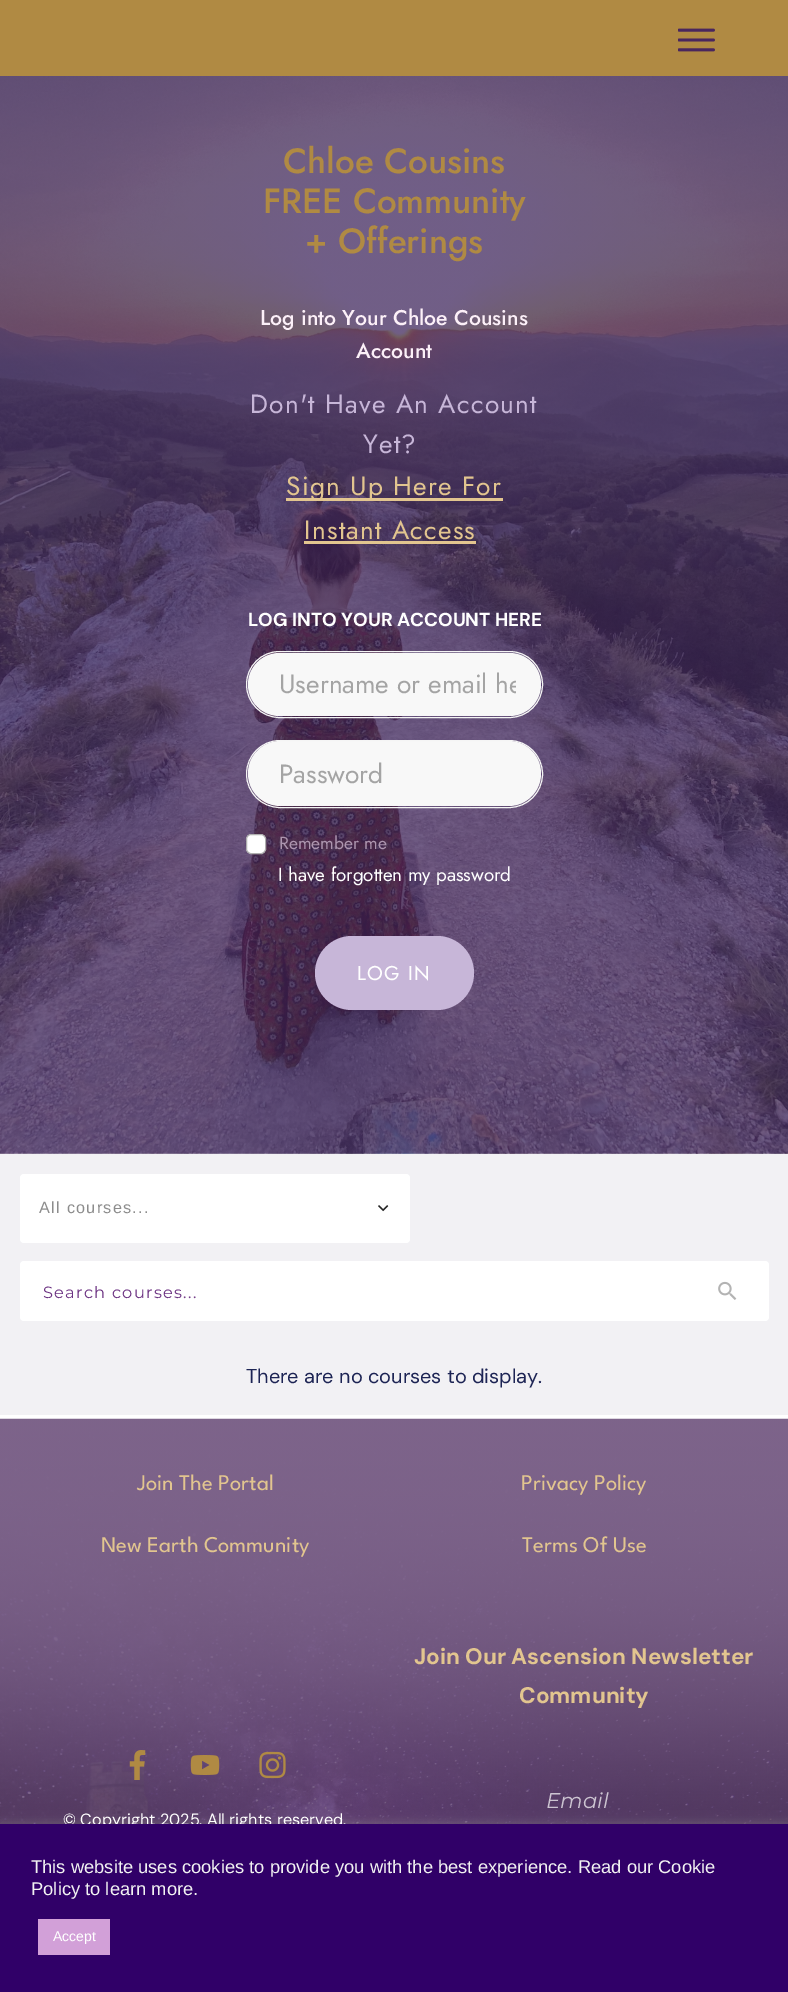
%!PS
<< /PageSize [788 1992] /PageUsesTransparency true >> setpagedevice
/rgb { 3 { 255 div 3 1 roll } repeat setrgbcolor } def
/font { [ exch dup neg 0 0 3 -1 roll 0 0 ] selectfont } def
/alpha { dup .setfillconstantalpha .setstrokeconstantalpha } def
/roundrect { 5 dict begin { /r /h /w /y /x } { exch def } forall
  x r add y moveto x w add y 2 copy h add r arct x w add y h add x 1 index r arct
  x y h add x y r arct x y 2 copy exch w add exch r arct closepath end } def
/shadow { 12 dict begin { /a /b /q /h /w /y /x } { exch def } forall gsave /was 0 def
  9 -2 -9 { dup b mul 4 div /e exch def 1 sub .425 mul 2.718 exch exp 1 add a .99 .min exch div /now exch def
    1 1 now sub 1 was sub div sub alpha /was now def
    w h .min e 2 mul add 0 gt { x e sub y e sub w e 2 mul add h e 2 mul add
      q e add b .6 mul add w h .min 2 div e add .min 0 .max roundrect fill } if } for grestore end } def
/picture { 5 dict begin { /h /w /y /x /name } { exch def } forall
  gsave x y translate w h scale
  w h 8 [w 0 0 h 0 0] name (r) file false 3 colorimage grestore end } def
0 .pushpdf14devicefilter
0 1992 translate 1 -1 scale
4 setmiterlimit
255 255 255 rgb
0 0 788 1992 rectfill
176 138 67 rgb
0 0 788 76 rectfill
(img/1.rgb) 678 28 37 24 picture
(img/2.rgb) 0 76 788 1078 picture
226 197 143 rgb
286 498 217 3 rectfill
304 541 172 3 rectfill
248 248 248 rgb
248 653 293 63 31.5 roundrect fill
245 245 245 rgb
246.5 651.5 296 66 33 roundrect stroke
248 248 248 rgb
248 741 293 65 32.5 roundrect fill
245 245 245 rgb
246.5 740.5 296 67 33.5 roundrect stroke
255 255 255 rgb
246.5 834.5 19 19 4.5 roundrect gsave fill grestore
175 175 175 rgb
stroke
199 182 216 rgb
315 936 159 74 37 roundrect fill
242 241 244 rgb
0 1154 788 261 rectfill
255 255 255 rgb
20 1174 390 69 4 roundrect fill
(img/3.rgb) 378 1205 11 7 picture
20 1261 749 60 4 roundrect fill
(img/4.rgb) 718 1281 19 19 picture
(img/5.rgb) 0 1418 788 406 picture
(img/6.rgb) 129 1750 17 30 picture
(img/7.rgb) 190 1755 30 20 picture
(img/8.rgb) 259 1751 27 28 picture
172 171 171 rgb
0 1823 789 168 0 6 0.3 shadow
/Jost-Medium 35 font
176 138 67 rgb
[
  [(Chloe Cousins) 283 173]
  [(FREE Community) 263 213]
  [(+ Offerings) 305 253]
] { aload pop moveto show } forall
/Jost-Medium 21.25 font
252 240 248 rgb
260 325 moveto (Log into Your Chloe Cousins) show
356 358 moveto (Account) show
/Jost-Regular 26.25 font
199 182 216 rgb
250 413 moveto 1.25 0 (Don't Have An Account) ashow
363 453 moveto 1.25 0 (Yet?) ashow
226 197 143 rgb
286 495 moveto 1.25 0 (Sign Up Here For) ashow
304 539 moveto 1.25 0 (Instant Access) ashow
/DMSans-Bold 18.75 font
255 255 255 rgb
248 626 moveto (LOG INTO YOUR ACCOUNT HERE) show
gsave
279 666 237 38 rectclip
/Jost-Regular 26.25 font
164 164 164 rgb
279 693 moveto (Username or email he) show
grestore
/Jost-Regular 26.25 font
164 164 164 rgb
279 783 moveto (Password) show
/Jost-Regular 17.5 font
173 149 175 rgb
279 849 moveto (Remember me) show
/Jost-Regular 18.75 font
255 255 255 rgb
278 881 moveto (I have forgotten my password) show
/Jost-Regular 20 font
357 980 moveto 1.25 0 (LOG IN) ashow
/LiberationSans-Regular 16.25 font
140 140 140 rgb
39 1213 moveto 1.25 0 (All courses...) ashow
/Montserrat-Regular 16.25 font
108 51 130 rgb
43 1298 moveto 1.25 0 (Search courses...) ashow
/DMSans-Regular 20 font
29 36 84 rgb
246 1383 moveto (There are no courses to display.) show
/LeagueSpartan-Regular 22.5 font
226 197 143 rgb
[
  [(Join The Portal) 137 1490]
  [(New Earth Community) 101 1552]
  [(Privacy Policy) 521 1490]
  [(Terms Of Use) 522 1552]
] { aload pop moveto show } forall
/DMSans-Bold 22.5 font
414 1664 moveto (Join Our Ascension Newsletter) show
519 1703 moveto (Community) show
/Montserrat-Italic 21.25 font
204 196 209 rgb
546 1808 moveto (Email) show
/DMSans-Regular 16.25 font
255 255 255 rgb
63 1825 moveto (© Copyright 2025. All rights reserved.) show
48 0 104 rgb
0 1824 788 168 rectfill
/LiberationSans-Regular 18.35 font
242 242 242 rgb
31 1873 moveto (This website uses cookies to provide you with the best experience. Read our Cookie) show
31 1895 moveto (Policy to learn more.) show
210 160 216 rgb
38 1919 72 36 rectfill
/LiberationSans-Regular 14 font
255 255 255 rgb
53 1941 moveto (Accept) show
.poppdf14devicefilter showpage
